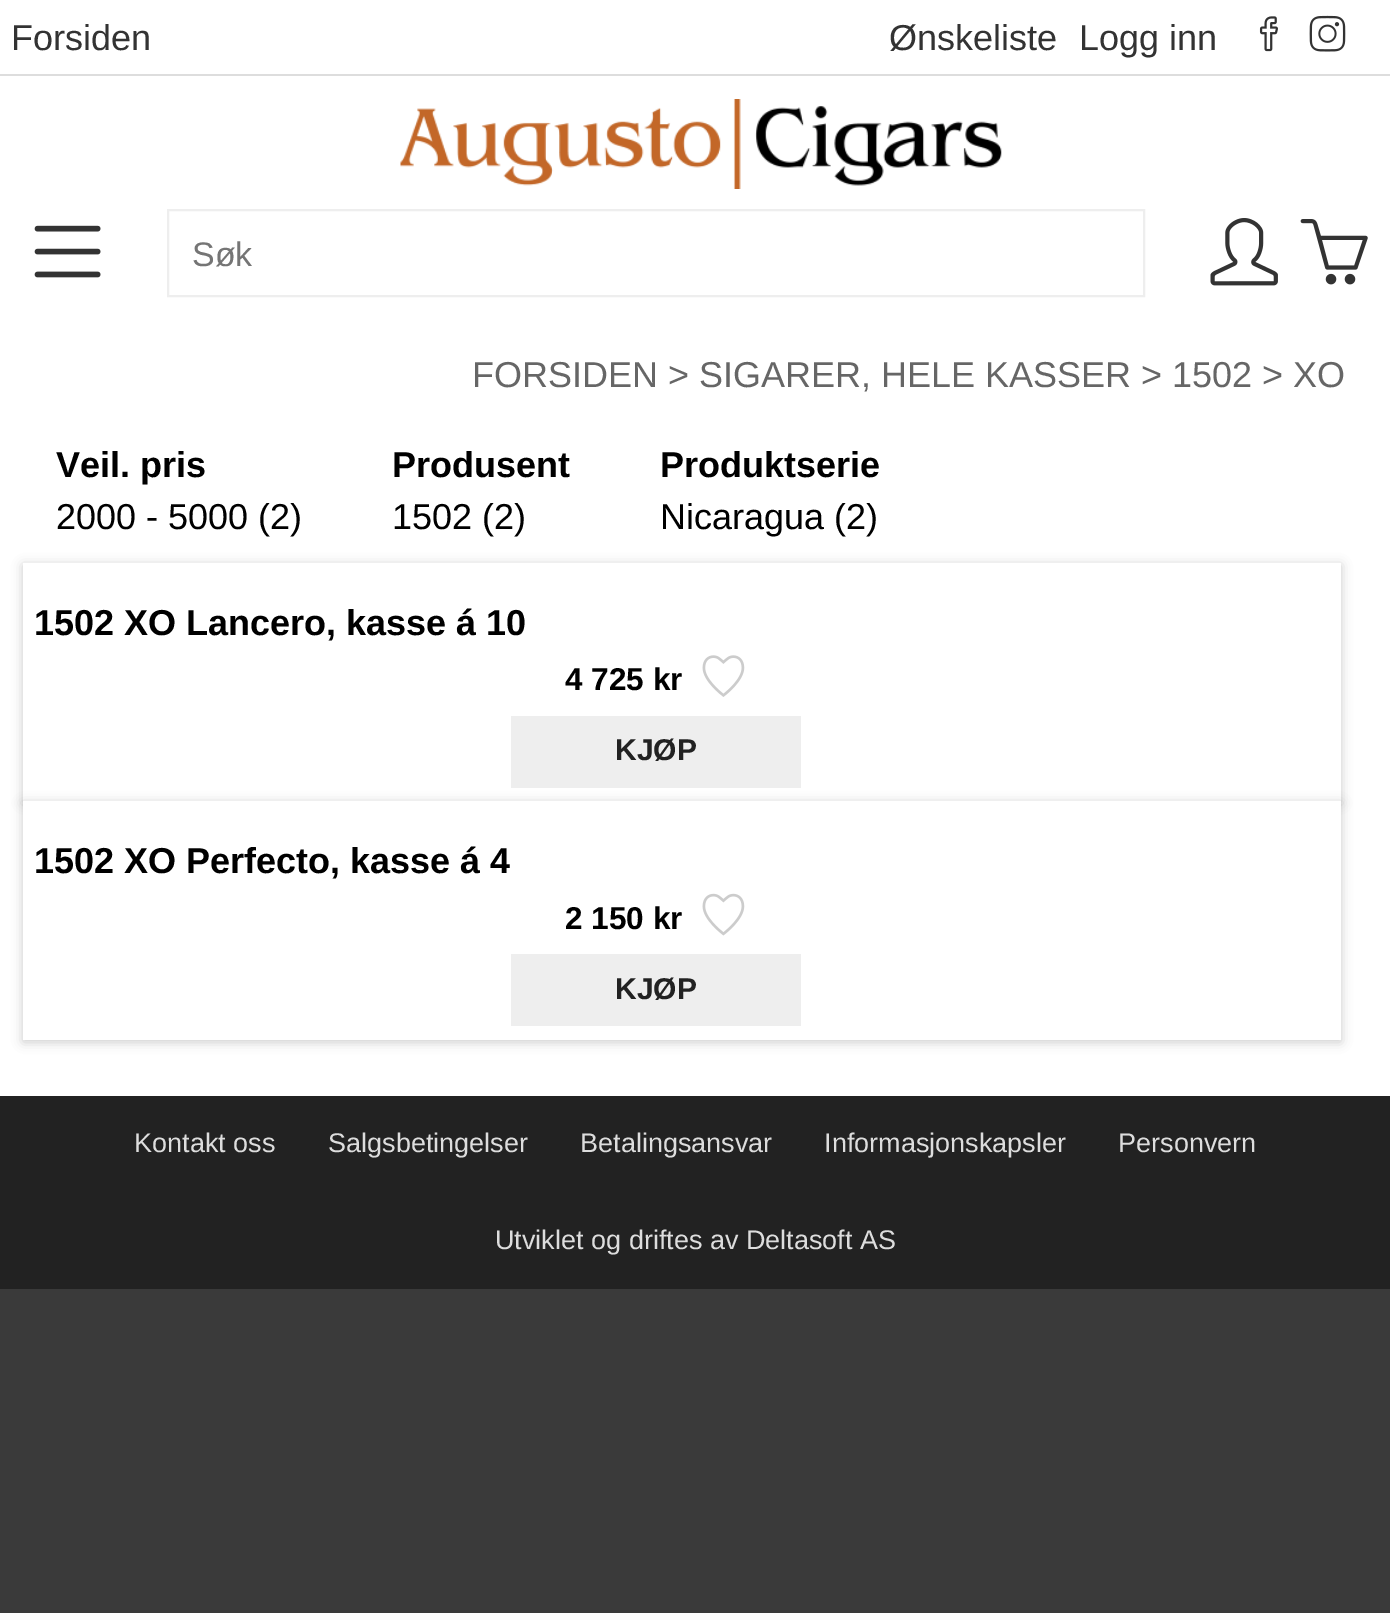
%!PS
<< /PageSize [1390 1613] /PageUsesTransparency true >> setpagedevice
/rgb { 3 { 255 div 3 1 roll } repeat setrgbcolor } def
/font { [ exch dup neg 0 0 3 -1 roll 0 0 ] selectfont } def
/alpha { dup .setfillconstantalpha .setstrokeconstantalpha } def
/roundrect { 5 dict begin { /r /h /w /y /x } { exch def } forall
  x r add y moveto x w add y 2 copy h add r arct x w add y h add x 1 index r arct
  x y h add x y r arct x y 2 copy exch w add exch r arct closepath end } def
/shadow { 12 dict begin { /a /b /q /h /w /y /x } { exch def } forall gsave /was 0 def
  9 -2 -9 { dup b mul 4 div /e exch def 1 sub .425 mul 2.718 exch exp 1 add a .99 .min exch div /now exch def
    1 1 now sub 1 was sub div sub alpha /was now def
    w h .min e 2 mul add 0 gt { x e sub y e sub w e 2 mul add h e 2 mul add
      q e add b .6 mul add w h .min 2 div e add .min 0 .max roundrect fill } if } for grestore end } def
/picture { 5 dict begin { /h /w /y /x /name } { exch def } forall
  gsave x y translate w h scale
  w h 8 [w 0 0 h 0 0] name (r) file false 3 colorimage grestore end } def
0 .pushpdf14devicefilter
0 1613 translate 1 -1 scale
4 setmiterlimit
58 58 58 rgb
0 0 1390 1613 rectfill
255 255 255 rgb
0 0 1390 1096 rectfill
221 221 221 rgb
0 74 1390 2 rectfill
(img/1.rgb) 1259 16 19 36 picture
(img/2.rgb) 1309 15 37 37 picture
(img/3.rgb) 400 99 602 90 picture
(img/4.rgb) 34 225 67 53 picture
238 238 238 rgb
2 setlinewidth
168 210 976 86 rectstroke
(img/5.rgb) 1210 218 68 68 picture
(img/6.rgb) 1300 219 68 66 picture
gsave
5 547 moveto 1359 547 lineto 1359 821 lineto 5 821 lineto closepath 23 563 moveto 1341 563 lineto 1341 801 lineto 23 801 lineto closepath eoclip newpath
0 0 0 rgb
23 565 1318 238 0 5.5 0.2 shadow
grestore
(img/7.rgb) 702 655 43 42 picture
511 716 290 72 rectfill
0 0 0 rgb
23 803 1318 239 0 5.5 0.2 shadow
255 255 255 rgb
23 801 1318 239 rectfill
(img/8.rgb) 702 893 43 43 picture
238 238 238 rgb
511 954 290 72 rectfill
34 34 34 rgb
0 1096 1390 193 rectfill
/LiberationSans-Regular 36 font
51 51 51 rgb
[
  [(Forsiden) 11 50]
  [(Ønskeliste) 889 50]
  [(Logg inn) 1079 50]
] { aload pop moveto show } forall
/LiberationSans-Regular 34 font
117 117 117 rgb
192 266 moveto (Søk) show
/LiberationSans-Regular 36 font
102 102 102 rgb
472 387 moveto (FORSIDEN > SIGARER, HELE KASSER > 1502 > XO) show
/LiberationSans-Bold 36 font
0 0 0 rgb
56 477 moveto (Veil. pris) show
/LiberationSans-Regular 36 font
56 529 moveto (2000 - 5000 \(2\)) show
/LiberationSans-Bold 36 font
392 477 moveto (Produsent) show
/LiberationSans-Regular 36 font
392 529 moveto (1502 \(2\)) show
/LiberationSans-Bold 36 font
660 477 moveto (Produktserie) show
/LiberationSans-Regular 36 font
660 529 moveto (Nicaragua \(2\)) show
/LiberationSans-Bold 36 font
34 635 moveto (1502 XO Lancero, kasse á 10) show
/LiberationSans-Bold 31.5 font
565 690 moveto (4 725 kr) show
/LiberationSans-Bold 30 font
34 34 34 rgb
615 760 moveto (KJØP) show
/LiberationSans-Bold 36 font
0 0 0 rgb
34 873 moveto (1502 XO Perfecto, kasse á 4) show
/LiberationSans-Bold 31.5 font
565 929 moveto (2 150 kr) show
/LiberationSans-Bold 30 font
34 34 34 rgb
615 999 moveto (KJØP) show
/LiberationSans-Regular 27 font
221 221 221 rgb
[
  [(Kontakt oss) 134 1152]
  [(Salgsbetingelser) 328 1152]
  [(Betalingsansvar) 580 1152]
  [(Informasjonskapsler) 824 1152]
  [(Personvern) 1118 1152]
  [(Utviklet og driftes av Deltasoft AS) 495 1249]
] { aload pop moveto show } forall
.poppdf14devicefilter showpage
